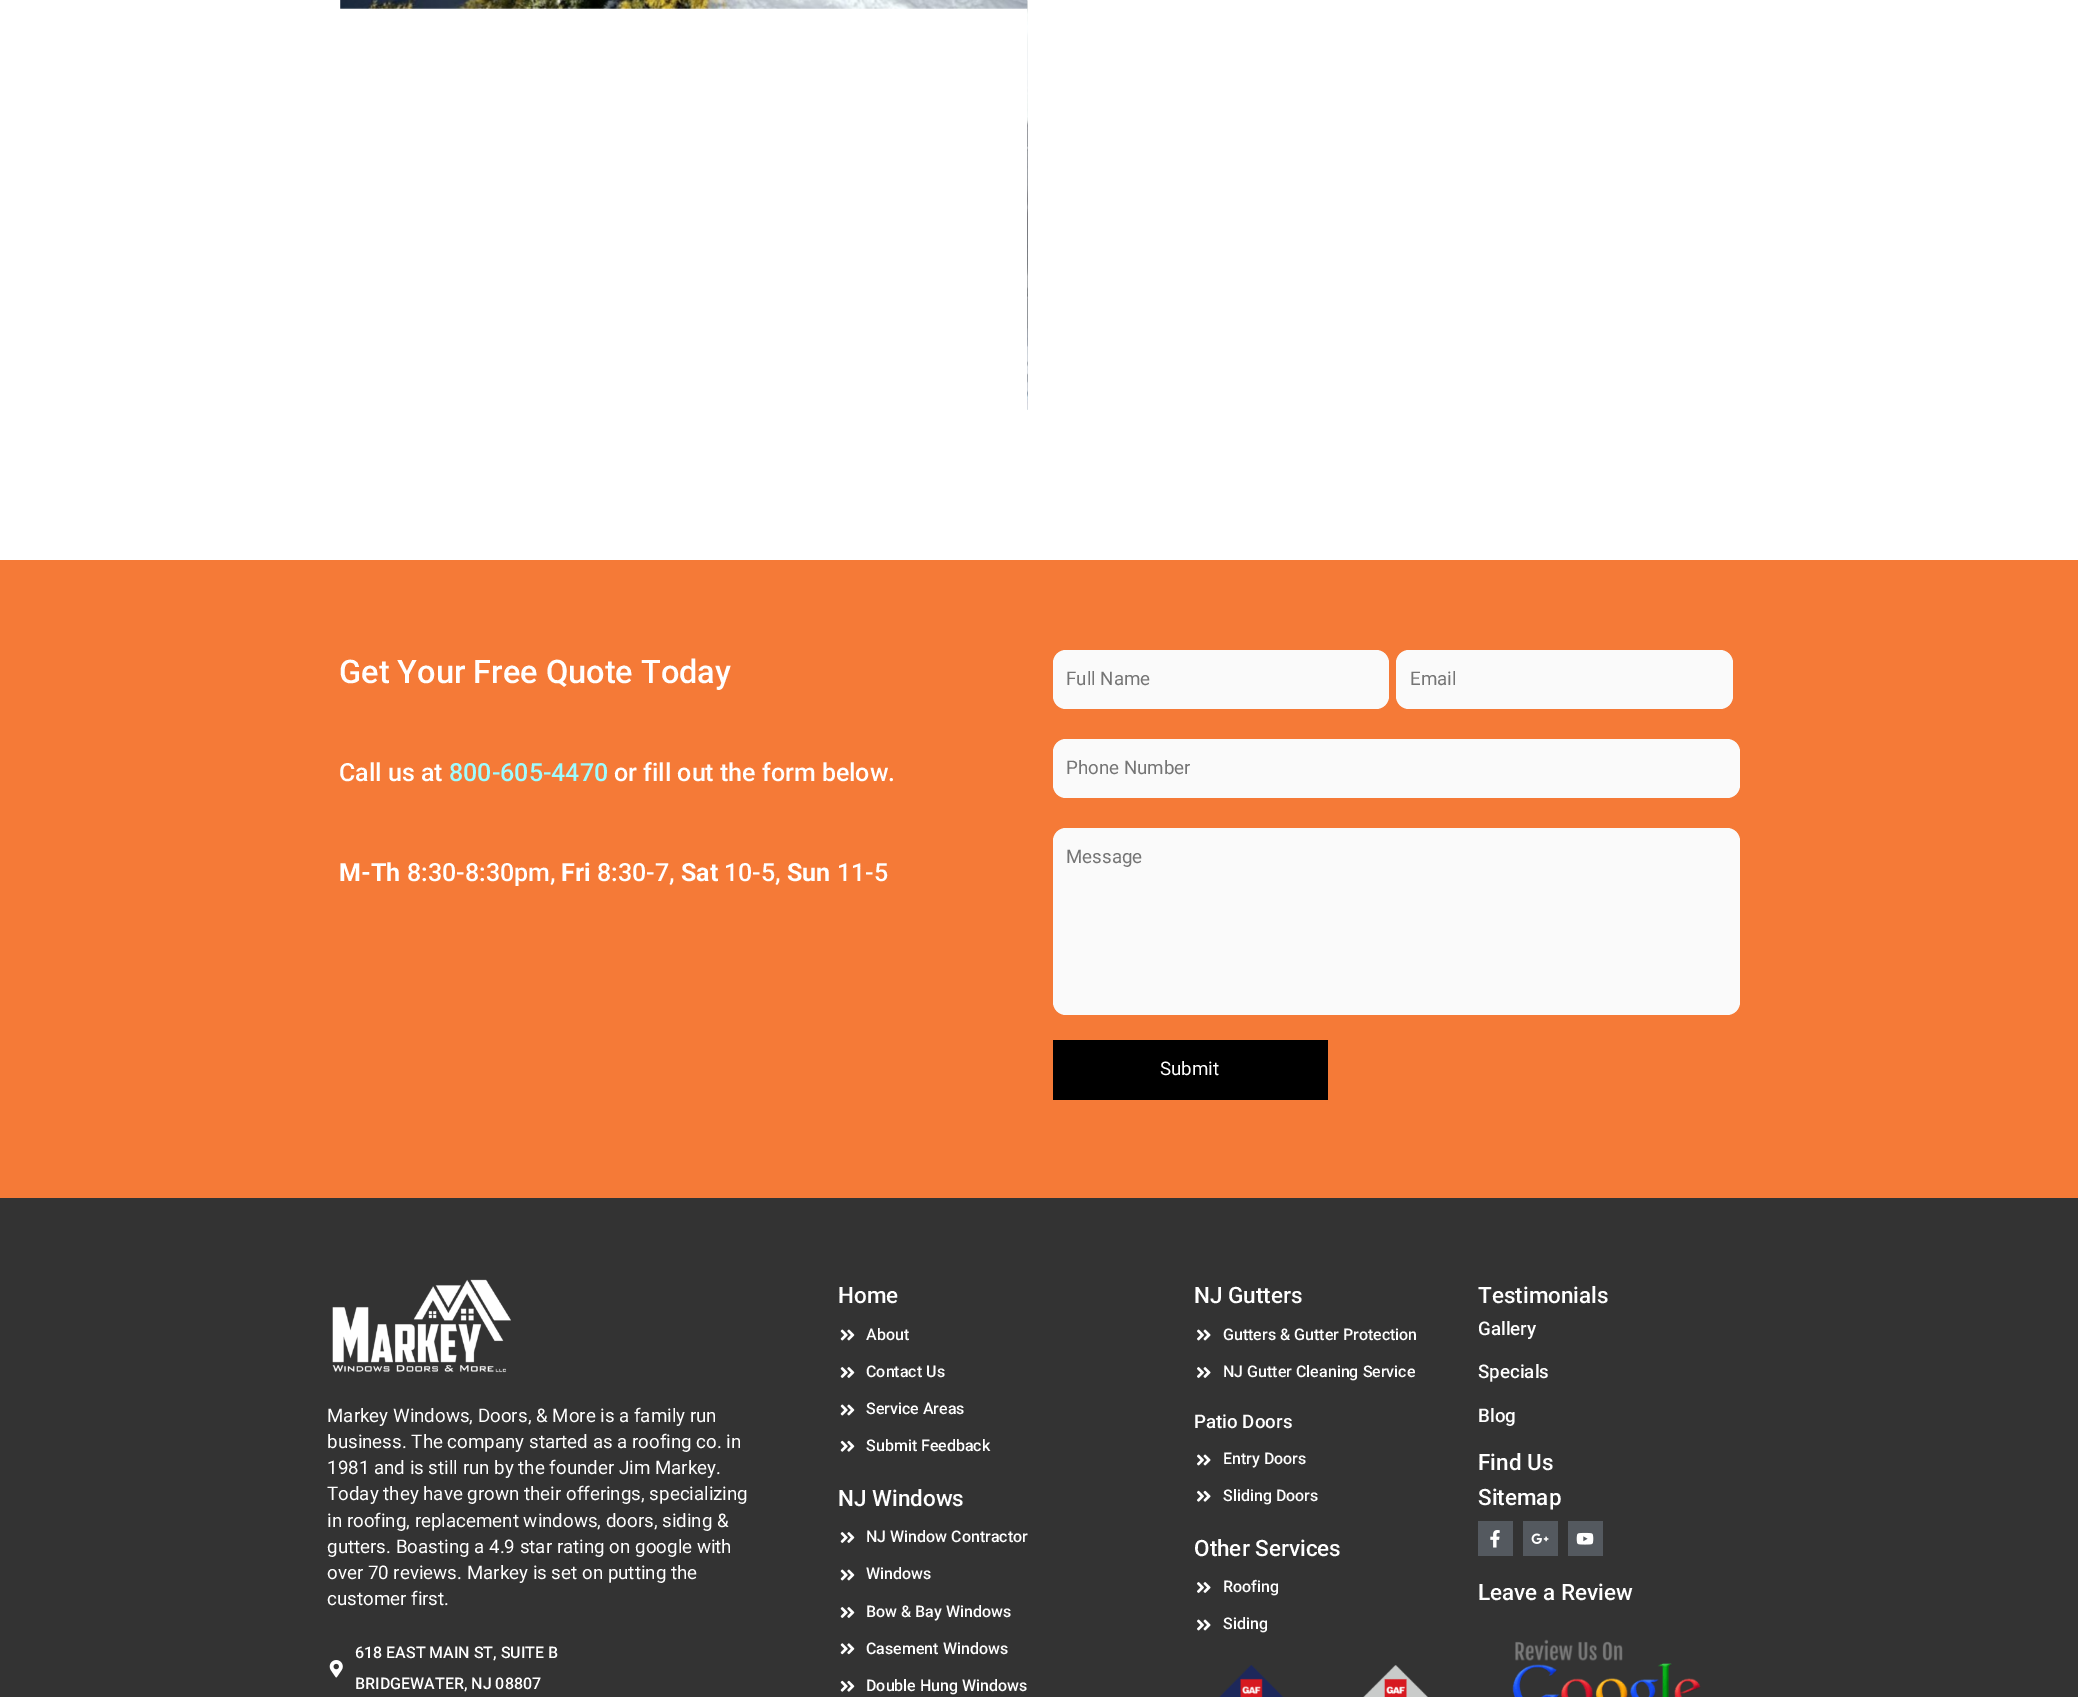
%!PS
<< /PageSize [2078 1697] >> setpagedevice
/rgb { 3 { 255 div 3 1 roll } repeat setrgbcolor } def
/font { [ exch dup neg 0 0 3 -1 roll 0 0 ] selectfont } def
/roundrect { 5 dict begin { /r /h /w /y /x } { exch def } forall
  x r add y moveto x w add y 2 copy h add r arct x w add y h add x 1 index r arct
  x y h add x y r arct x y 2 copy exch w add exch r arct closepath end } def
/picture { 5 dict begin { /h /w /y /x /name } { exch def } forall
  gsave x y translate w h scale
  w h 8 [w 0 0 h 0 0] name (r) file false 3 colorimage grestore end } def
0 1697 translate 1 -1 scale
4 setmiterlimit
255 255 255 rgb
0 0 2078 1697 rectfill
(img/1.rgb) 340 0 688 9 picture
(img/2.rgb) 1027 0 1 410 picture
245 122 55 rgb
0 560 2078 638 rectfill
250 250 250 rgb
1053 650 336 59 13 roundrect fill
1396 650 337 59 13 roundrect fill
1053 739 687 59 13 roundrect fill
1053 828 687 187 13 roundrect fill
0 0 0 rgb
1053 1040 275 60 rectfill
51 51 51 rgb
0 1198 2078 499 rectfill
(img/3.rgb) 332 1279 179 94 picture
(img/4.rgb) 329 1660 14 18 picture
(img/5.rgb) 840 1329 15 12 picture
(img/6.rgb) 840 1367 15 11 picture
(img/5.rgb) 840 1404 15 12 picture
(img/7.rgb) 840 1440 15 12 picture
(img/6.rgb) 840 1532 15 11 picture
(img/5.rgb) 840 1569 15 12 picture
(img/6.rgb) 840 1607 15 11 picture
(img/8.rgb) 840 1643 15 12 picture
(img/7.rgb) 840 1680 15 12 picture
(img/9.rgb) 1197 1329 14 12 picture
(img/10.rgb) 1197 1367 14 11 picture
(img/9.rgb) 1197 1454 14 12 picture
(img/11.rgb) 1197 1490 14 12 picture
(img/10.rgb) 1197 1582 14 11 picture
(img/9.rgb) 1197 1619 14 12 picture
(img/12.rgb) 1219 1665 65 32 picture
(img/13.rgb) 1363 1665 65 32 picture
84 89 95 rgb
1478 1521 35 35 rectfill
(img/14.rgb) 1490 1530 10 18 picture
1523 1521 35 35 rectfill
(img/15.rgb) 1531 1533 18 11 picture
1568 1521 35 35 rectfill
(img/16.rgb) 1576 1532 18 13 picture
(img/17.rgb) 1512 1639 189 58 picture
/Roboto-Medium 32.5 font
255 255 255 rgb
339 683 moveto (Get Your Free Quote Today) show
/Roboto-Medium 25 font
339 781 moveto (Call us at) show
158 252 255 rgb
449 781 moveto (800-605-4470) show
255 255 255 rgb
614 781 moveto (or fill out the form below.) show
/Roboto-Bold 25 font
339 881 moveto (M-Th) show
/Roboto-Medium 25 font
407 881 moveto (8:30-8:30pm,) show
/Roboto-Bold 25 font
561 881 moveto (Fri) show
/Roboto-Medium 25 font
597 881 moveto (8:30-7,) show
/Roboto-Bold 25 font
681 881 moveto (Sat) show
/Roboto-Medium 25 font
724 881 moveto (10-5,) show
/Roboto-Bold 25 font
787 881 moveto (Sun) show
/Roboto-Medium 25 font
837 881 moveto (11-5) show
/Roboto-Regular 18.75 font
117 117 117 rgb
[
  [(Full Name) 1066 685]
  [(Email) 1410 685]
  [(Phone Number) 1066 774]
  [(Message) 1066 863]
] { aload pop moveto show } forall
255 255 255 rgb
[
  [(Submit) 1160 1075]
  [(Markey Windows, Doors, & More is a family run) 327 1422]
  [(business. The company started as a roofing co. in) 327 1448]
  [(1981 and is still run by the founder Jim Markey.) 327 1474]
  [(Today they have grown their offerings, specializing) 327 1500]
  [(in roofing, replacement windows, doors, siding &) 327 1527]
  [(gutters. Boasting a 4.9 star rating on google with) 327 1553]
  [(over 70 reviews. Markey is set on putting the) 327 1579]
  [(customer first.) 327 1605]
] { aload pop moveto show } forall
/Roboto-Medium 16 font
355 1658 moveto (618 EAST MAIN ST, SUITE B) show
355 1689 moveto (BRIDGEWATER, NJ 08807) show
/Roboto-Medium 22.5 font
838 1303 moveto (Home) show
/Roboto-Medium 16 font
[
  [(About) 866 1340]
  [(Contact Us) 866 1377]
  [(Service Areas) 866 1414]
  [(Submit Feedback) 866 1451]
] { aload pop moveto show } forall
/Roboto-Medium 22.5 font
838 1506 moveto (NJ Windows) show
/Roboto-Medium 16 font
[
  [(NJ Window Contractor) 866 1542]
  [(Windows) 866 1579]
  [(Bow & Bay Windows) 866 1617]
  [(Casement Windows) 866 1654]
  [(Double Hung Windows) 866 1691]
] { aload pop moveto show } forall
/Roboto-Medium 22.5 font
1194 1303 moveto (NJ Gutters) show
/Roboto-Medium 16 font
1223 1340 moveto (Gutters & Gutter Protection) show
1223 1377 moveto (NJ Gutter Cleaning Service) show
/Roboto-Medium 18.75 font
1194 1428 moveto (Patio Doors) show
/Roboto-Medium 16 font
1223 1464 moveto (Entry Doors) show
1223 1501 moveto (Sliding Doors) show
/Roboto-Medium 22.5 font
1194 1556 moveto (Other Services) show
/Roboto-Medium 16 font
1223 1592 moveto (Roofing) show
1223 1629 moveto (Siding) show
/Roboto-Medium 22.5 font
1478 1303 moveto (Testimonials) show
/Roboto-Medium 18.75 font
[
  [(Gallery) 1478 1335]
  [(Specials) 1478 1378]
  [(Blog) 1478 1422]
] { aload pop moveto show } forall
/Roboto-Medium 22.5 font
[
  [(Find Us) 1478 1470]
  [(Sitemap) 1478 1505]
  [(Leave a Review) 1478 1600]
] { aload pop moveto show } forall
showpage
